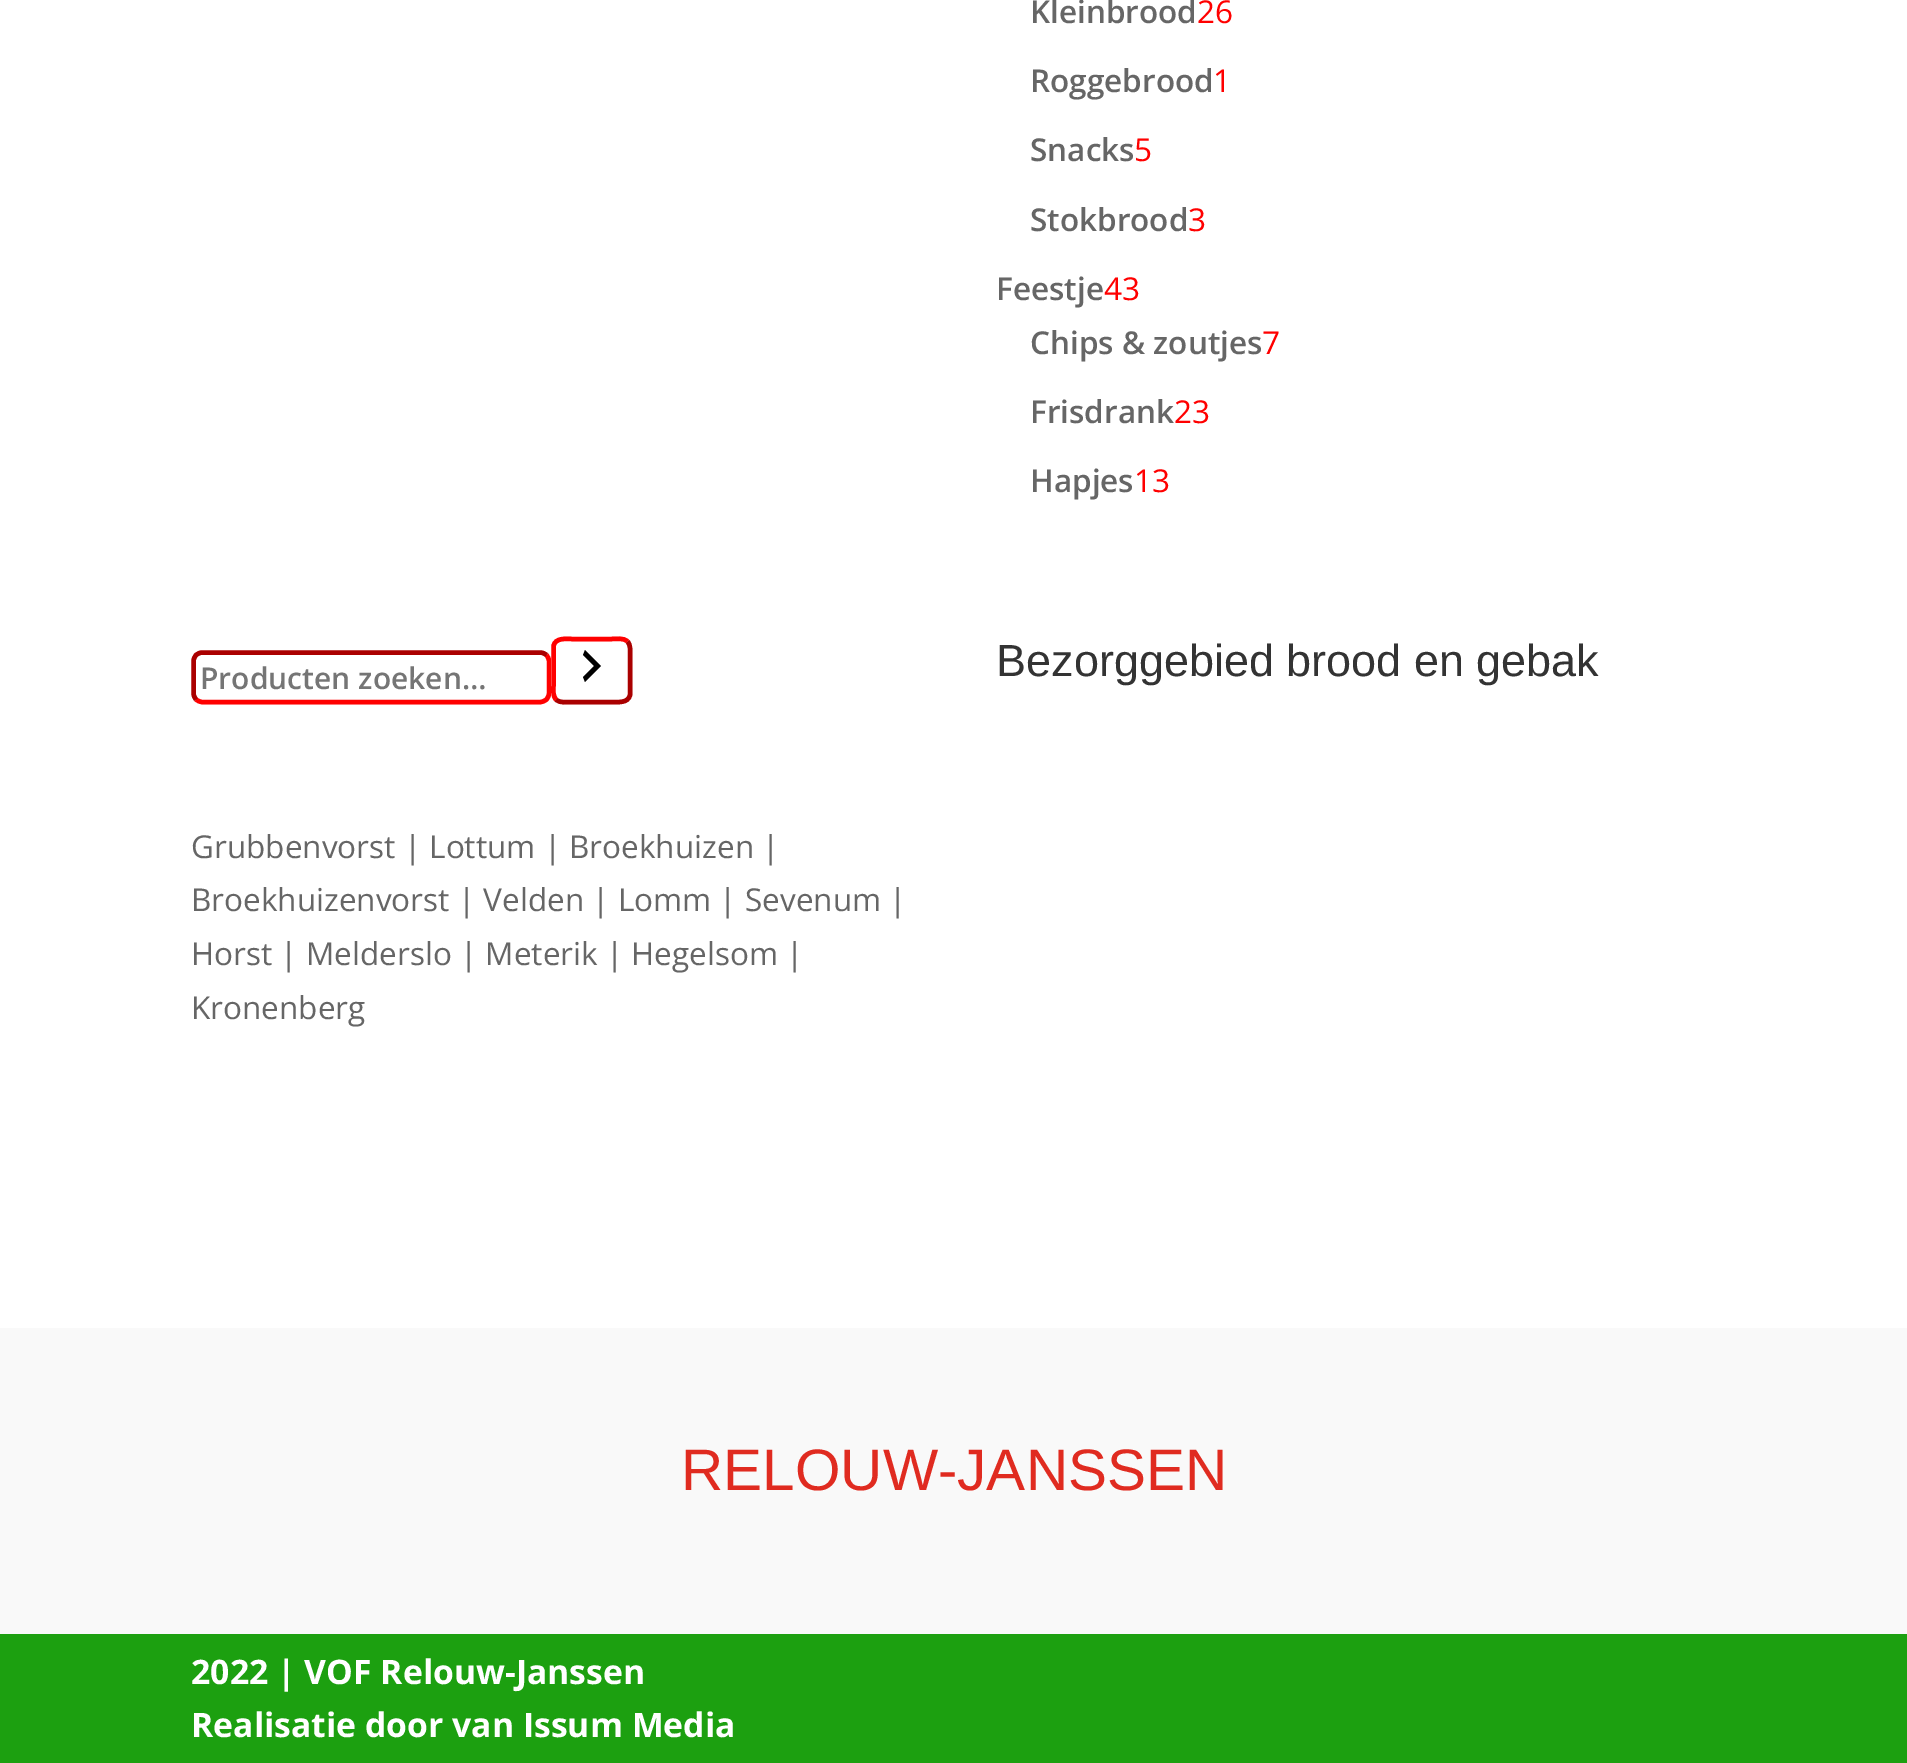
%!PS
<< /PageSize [1907 1763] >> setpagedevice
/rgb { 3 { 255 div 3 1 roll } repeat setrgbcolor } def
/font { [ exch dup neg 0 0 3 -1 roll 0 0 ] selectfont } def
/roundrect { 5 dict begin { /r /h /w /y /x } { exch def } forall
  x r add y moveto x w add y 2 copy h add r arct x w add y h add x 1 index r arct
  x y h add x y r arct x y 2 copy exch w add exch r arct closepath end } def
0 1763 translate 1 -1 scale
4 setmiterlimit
255 255 255 rgb
0 0 1907 1763 rectfill
255 0 0 rgb
4.5 setlinewidth
546.5 655 moveto 548 657 549 659 549 661.5 curveto 549 693 lineto 549 695.5 548 697.5 546.5 699.5 curveto 544.5 701 542.5 702 540 702 curveto 202.5 702 lineto 200 702 198 701 196 699.5 curveto stroke
170 0 0 rgb
196 699.5 moveto 194.5 697.5 193.5 695.5 193.5 693 curveto 193.5 661.5 lineto 193.5 659 194.5 657 196 655 curveto 198 653.5 200 652.5 202.5 652.5 curveto 540 652.5 lineto 542.5 652.5 544.5 653.5 546.5 655 curveto stroke
255 255 255 rgb
551 637 81 67 11 roundrect fill
170 0 0 rgb
627.5 641.5 moveto 631 645.5 630 651 630 655.5 curveto 630 695 lineto 628 703.5 618 702 611 702 curveto 572 702 lineto 567.5 702 560 703.5 556 699.5 curveto stroke
255 0 0 rgb
556 699.5 moveto 552.5 695.5 553.5 690 553.5 685.5 curveto 553.5 646 lineto 555.5 637.5 565.5 639 572 639 curveto 611 639 lineto 616 639 623.5 637.5 627.5 641.5 curveto stroke
0 0 0 rgb
583 677 moveto 594 666 lineto 583 655 lineto 585 650 lineto 601 666 lineto 585 682 lineto closepath fill
249 249 249 rgb
0 1328 1907 306 rectfill
28 160 16 rgb
0 1634 1907 129 rectfill
/OpenSans-SemiBold 31.5 font
102 102 102 rgb
1030 23 moveto (Kleinbrood) show
/OpenSans-Regular 31.5 font
255 0 0 rgb
1197 23 moveto (26) show
/OpenSans-SemiBold 31.5 font
102 102 102 rgb
1030 92 moveto (Roggebrood) show
/OpenSans-Regular 31.5 font
255 0 0 rgb
1213 92 moveto (1) show
/OpenSans-SemiBold 31.5 font
102 102 102 rgb
1030 161 moveto (Snacks) show
/OpenSans-Regular 31.5 font
255 0 0 rgb
1134 161 moveto (5) show
/OpenSans-SemiBold 31.5 font
102 102 102 rgb
1030 231 moveto (Stokbrood) show
/OpenSans-Regular 31.5 font
255 0 0 rgb
1188 231 moveto (3) show
/OpenSans-SemiBold 31.5 font
102 102 102 rgb
996 300 moveto (Feestje) show
/OpenSans-Regular 31.5 font
255 0 0 rgb
1104 300 moveto (43) show
/OpenSans-SemiBold 31.5 font
102 102 102 rgb
1030 354 moveto (Chips & zoutjes) show
/OpenSans-Regular 31.5 font
255 0 0 rgb
1262 354 moveto (7) show
/OpenSans-SemiBold 31.5 font
102 102 102 rgb
1030 423 moveto (Frisdrank) show
/OpenSans-Regular 31.5 font
255 0 0 rgb
1174 423 moveto (23) show
/OpenSans-SemiBold 31.5 font
102 102 102 rgb
1030 492 moveto (Hapjes) show
/OpenSans-Regular 31.5 font
255 0 0 rgb
1134 492 moveto (13) show
/OpenSans-SemiBold 30 font
117 117 117 rgb
200 689 moveto (Producten zoeken…) show
/LiberationSans-Regular 45 font
51 51 51 rgb
996 676 moveto (Bezorggebied brood en gebak) show
/OpenSans-Regular 31.5 font
102 102 102 rgb
[
  [(Grubbenvorst | Lottum | Broekhuizen |) 191 858]
  [(Broekhuizenvorst | Velden | Lomm | Sevenum |) 191 911]
  [(Horst | Melderslo | Meterik | Hegelsom |) 191 965]
  [(Kronenberg) 191 1019]
] { aload pop moveto show } forall
/LiberationSans-Regular 58.5 font
224 43 32 rgb
681 1490 moveto (RELOUW-JANSSEN) show
/OpenSans-Bold 33.75 font
255 255 255 rgb
191 1684 moveto (2022 | VOF Relouw-Janssen) show
191 1737 moveto (Realisatie door van Issum Media) show
showpage
